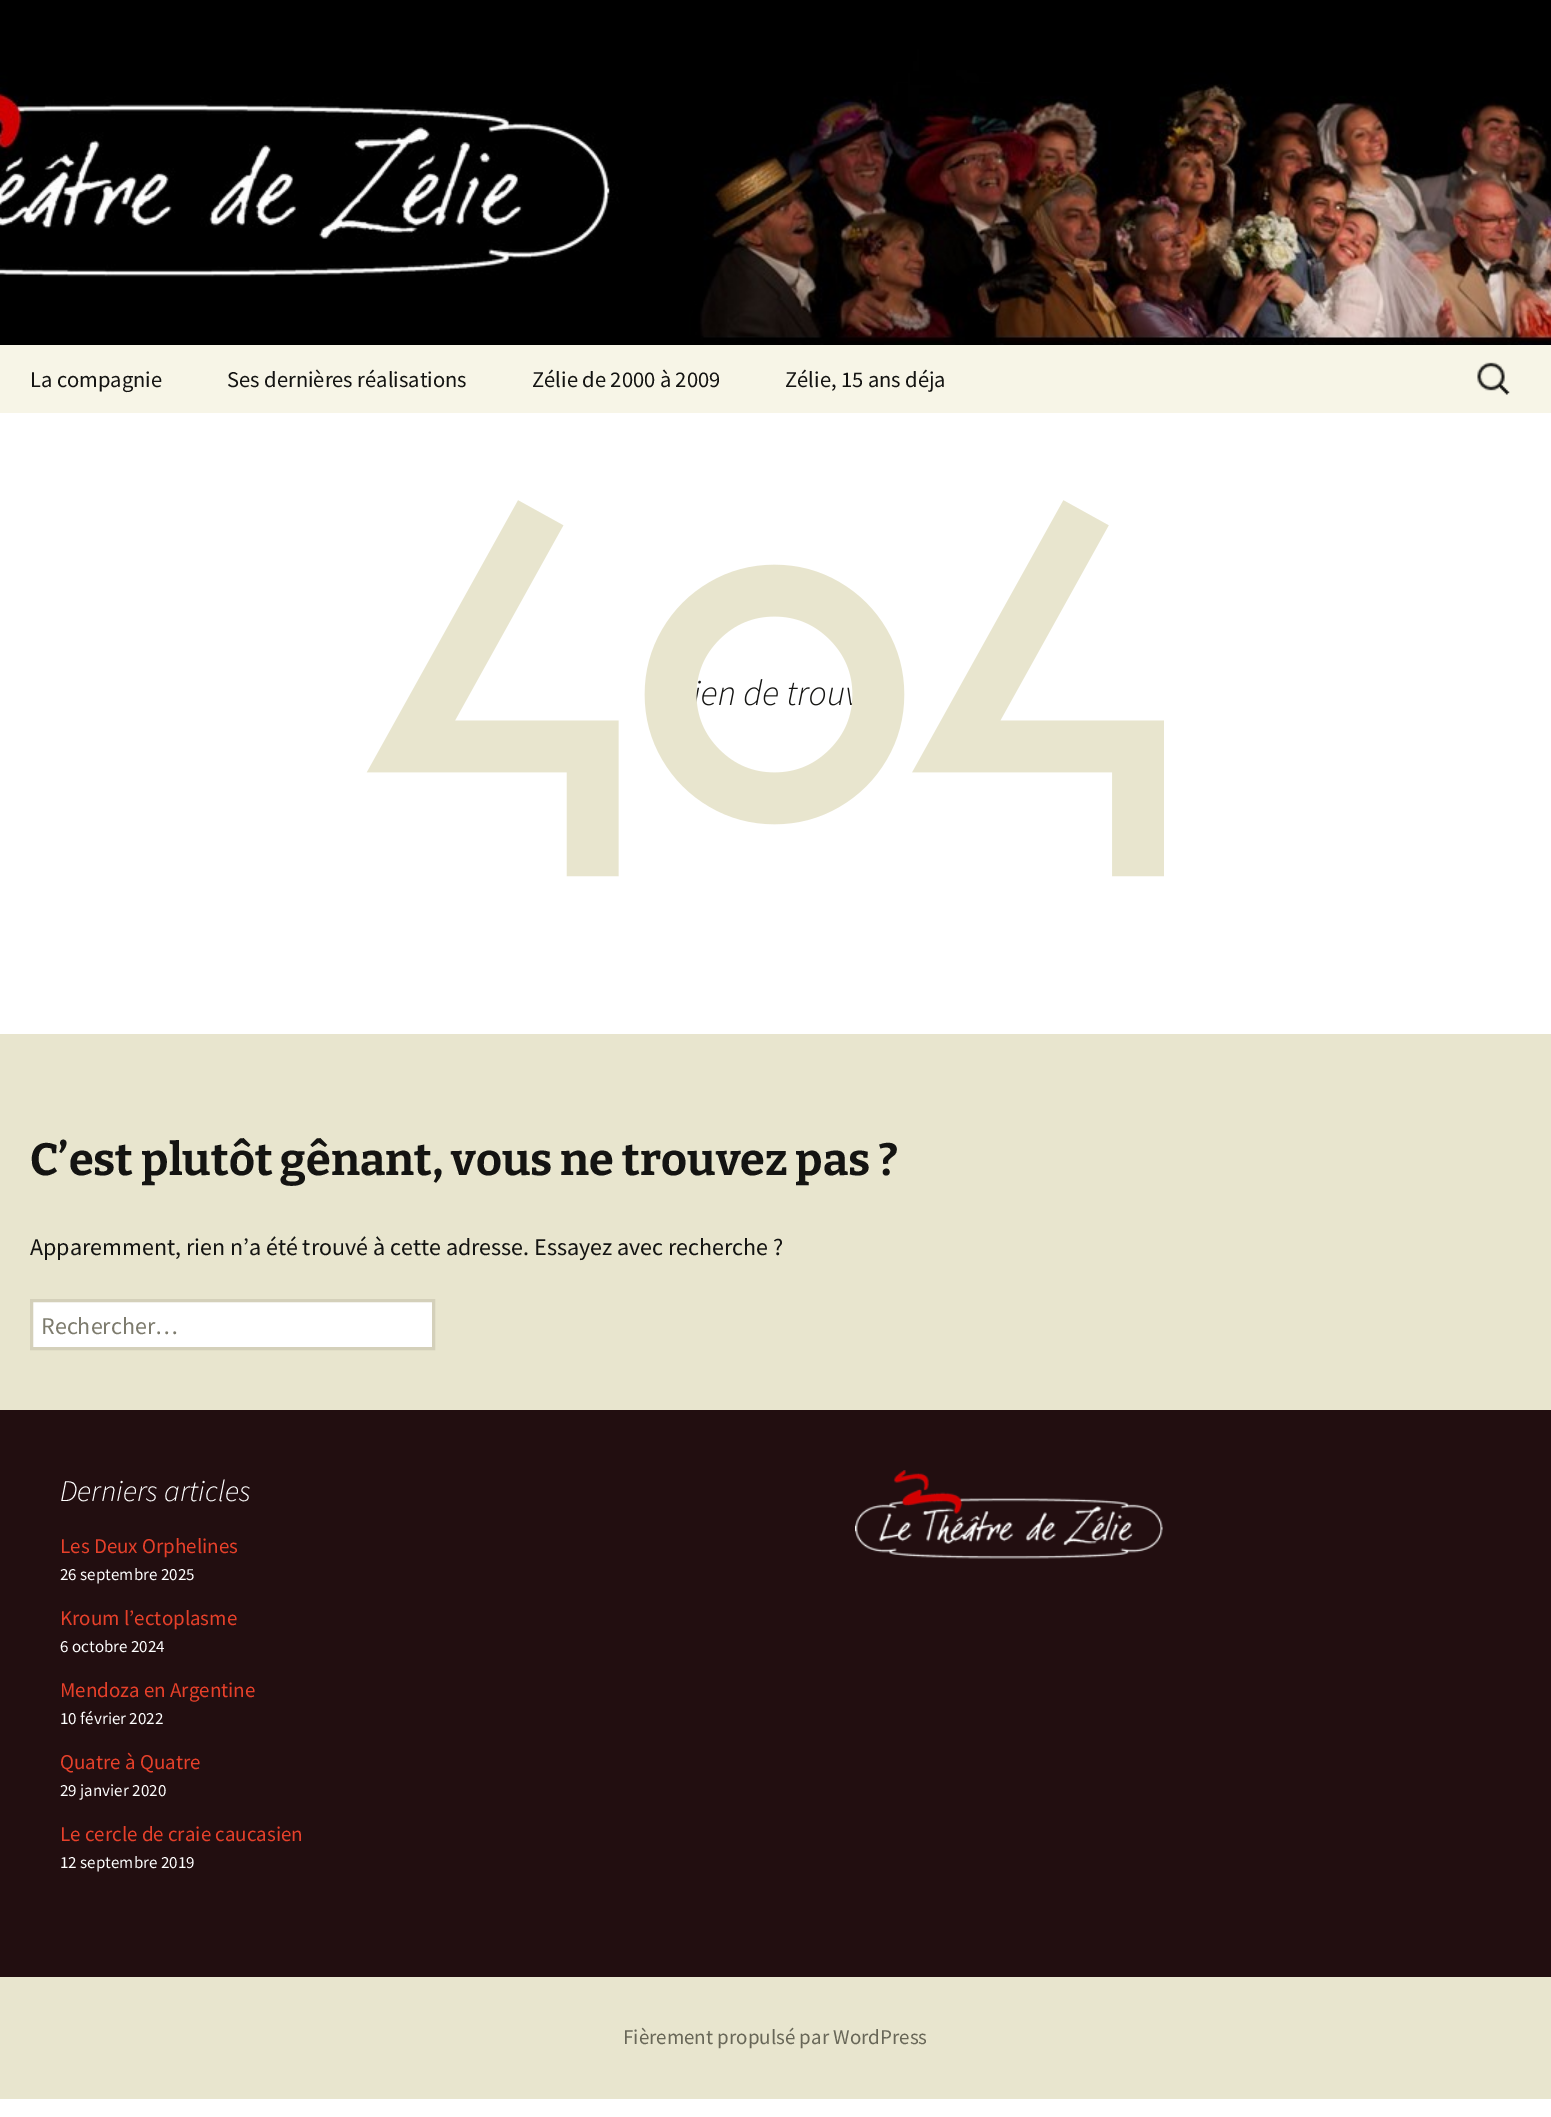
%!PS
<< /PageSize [1551 2117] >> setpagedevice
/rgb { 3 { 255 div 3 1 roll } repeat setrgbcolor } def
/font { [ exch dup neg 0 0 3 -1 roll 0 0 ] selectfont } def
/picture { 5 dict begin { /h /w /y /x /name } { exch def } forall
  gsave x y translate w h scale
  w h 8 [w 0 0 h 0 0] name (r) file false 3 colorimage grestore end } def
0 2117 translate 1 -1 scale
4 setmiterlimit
255 255 255 rgb
0 0 1551 2117 rectfill
(img/1.rgb) 0 0 1551 345 picture
247 245 231 rgb
0 345 1551 68 rectfill
(img/2.rgb) 1477 362 33 33 picture
232 229 206 rgb
0 1034 1551 376 rectfill
255 255 255 rgb
31.5 1300.5 moveto 433.5 1300.5 lineto 433.5 1348.5 lineto 31.5 1348.5 lineto closepath gsave fill grestore
212 208 186 rgb
3 setlinewidth
stroke
232 229 206 rgb
0 1977 1551 122 rectfill
34 14 16 rgb
0 1410 1551 567 rectfill
(img/4.rgb) 855 1470 308 89 picture
/SourceSansPro-Regular 22.5 font
20 20 18 rgb
[
  [(La compagnie) 30 387]
  [(Ses dernières réalisations) 227 387]
  [(Zélie de 2000 à 2009) 532 387]
  [(Zélie, 15 ans déja) 785 387]
] { aload pop moveto show } forall
/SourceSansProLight-LightItalic 36 font
693 705 moveto (ien de trouv) show
(img/3.rgb) 366 500 798 377 picture
/Bitter-Thin 45 font
30 1175 moveto (C’est plutôt gênant, vous ne trouvez pas ?) show
/SourceSansPro-Regular 24 font
30 1255 moveto (Apparemment, rien n’a été trouvé à cette adresse. Essayez avec recherche ?) show
125 123 109 rgb
41 1334 moveto (Rechercher…) show
/SourceSansProLight-LightItalic 30 font
255 255 255 rgb
60 1501 moveto (Derniers articles) show
/SourceSansPro-Regular 21 font
230 64 42 rgb
60 1553 moveto (Les Deux Orphelines) show
/SourceSansPro-Regular 17 font
255 255 255 rgb
60 1580 moveto (26 septembre 2025) show
/SourceSansPro-Regular 21 font
230 64 42 rgb
60 1625 moveto (Kroum l’ectoplasme) show
/SourceSansPro-Regular 17 font
255 255 255 rgb
60 1652 moveto (6 octobre 2024) show
/SourceSansPro-Regular 21 font
230 64 42 rgb
60 1697 moveto (Mendoza en Argentine) show
/SourceSansPro-Regular 17 font
255 255 255 rgb
60 1724 moveto (10 février 2022) show
/SourceSansPro-Regular 21 font
230 64 42 rgb
60 1769 moveto (Quatre à Quatre) show
/SourceSansPro-Regular 17 font
255 255 255 rgb
60 1796 moveto (29 janvier 2020) show
/SourceSansPro-Regular 21 font
230 64 42 rgb
60 1841 moveto (Le cercle de craie caucasien) show
/SourceSansPro-Regular 17 font
255 255 255 rgb
60 1868 moveto (12 septembre 2019) show
/SourceSansPro-Regular 21 font
104 103 88 rgb
623 2044 moveto (Fièrement propulsé par WordPress) show
showpage
